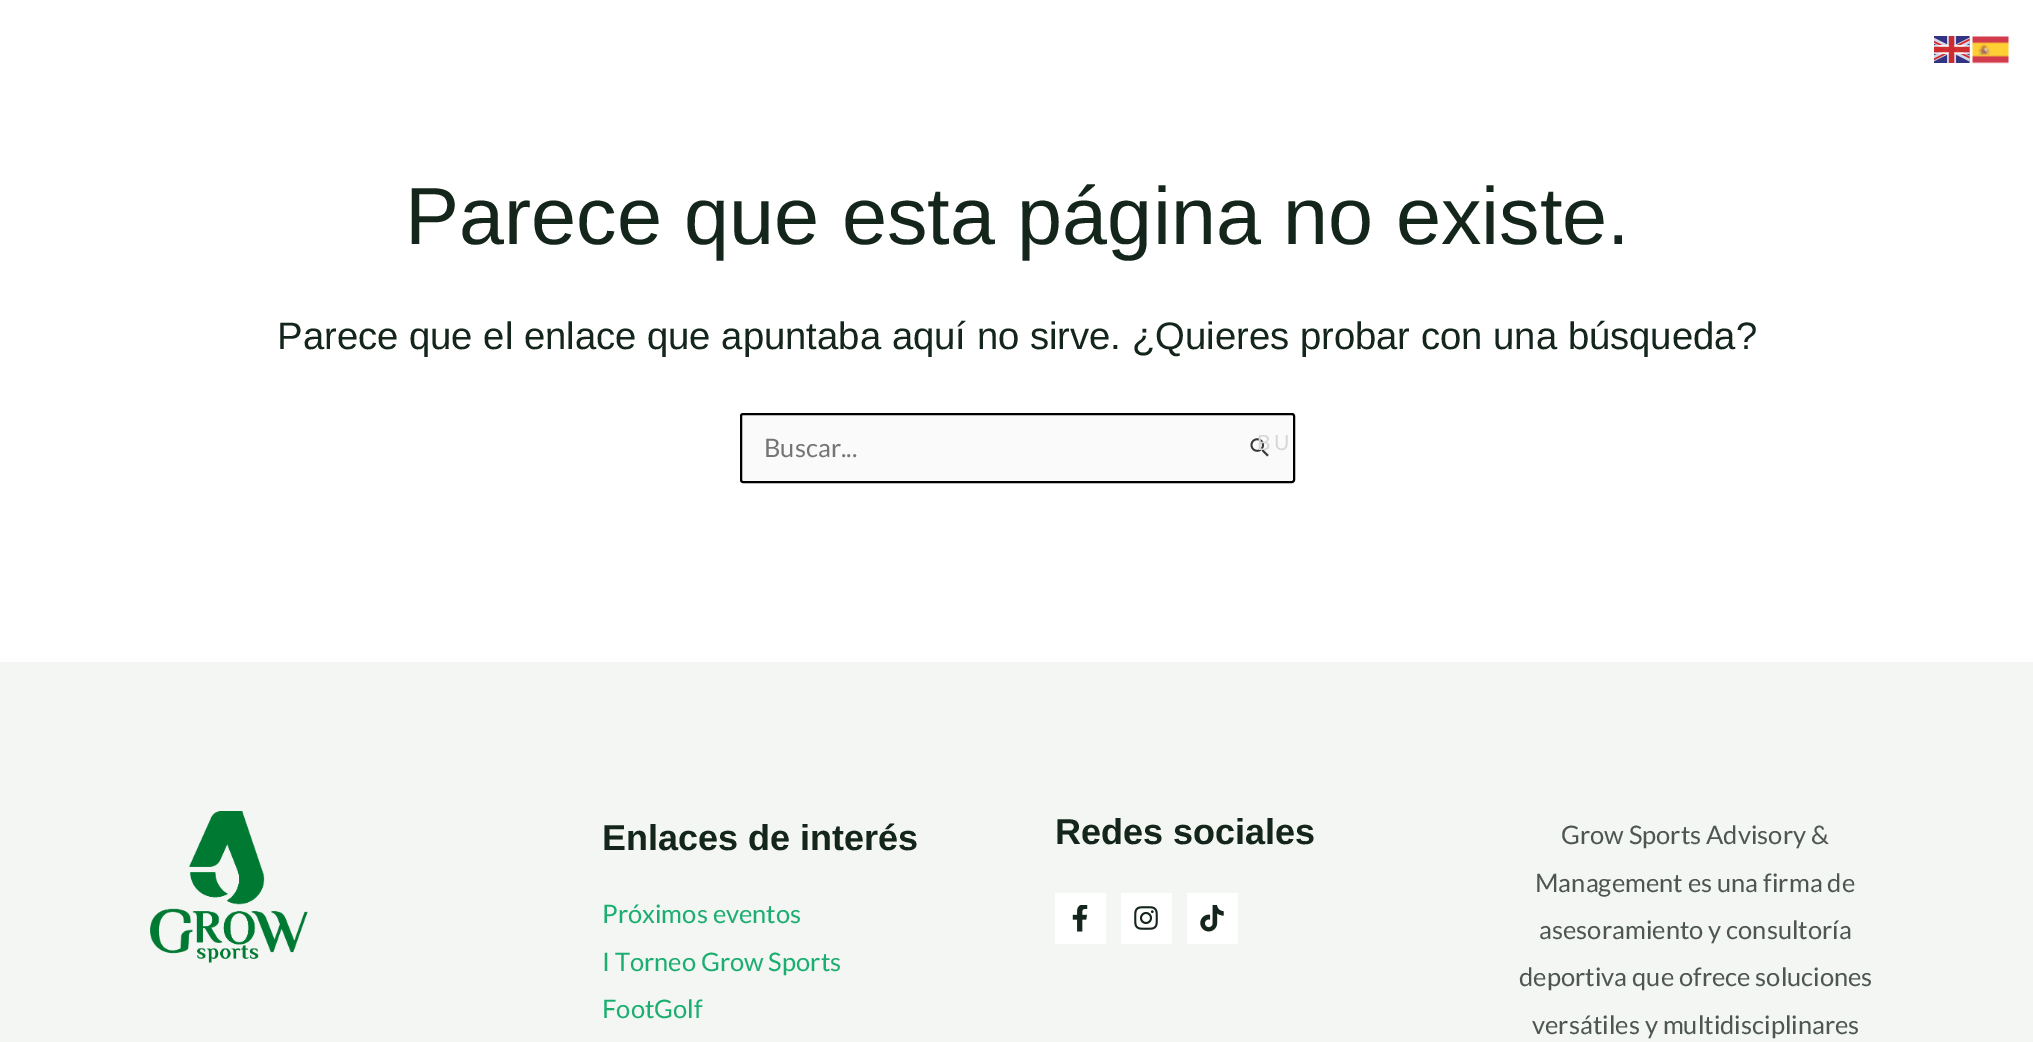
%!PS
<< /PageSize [2033 1042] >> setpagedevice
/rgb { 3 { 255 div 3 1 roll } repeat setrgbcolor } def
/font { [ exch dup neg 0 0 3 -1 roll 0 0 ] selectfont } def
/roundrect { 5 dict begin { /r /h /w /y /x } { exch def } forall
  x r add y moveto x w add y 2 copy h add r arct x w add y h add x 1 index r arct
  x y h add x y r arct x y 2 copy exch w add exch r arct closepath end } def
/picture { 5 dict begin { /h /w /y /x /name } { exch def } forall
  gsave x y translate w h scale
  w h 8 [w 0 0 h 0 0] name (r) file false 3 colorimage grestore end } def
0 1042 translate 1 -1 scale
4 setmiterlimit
255 255 255 rgb
0 0 2033 1042 rectfill
(img/1.rgb) 1934 36 36 27 picture
(img/2.rgb) 1972 36 37 28 picture
250 250 250 rgb
741 414 553 68 2 roundrect gsave fill grestore
0 0 0 rgb
2 setlinewidth
stroke
(img/3.rgb) 1250 438 19 19 picture
244 246 244 rgb
0 662 2033 380 rectfill
(img/4.rgb) 150 811 158 152 picture
255 255 255 rgb
1055 893 51 51 rectfill
(img/5.rgb) 1072 905 16 27 picture
1121 893 51 51 rectfill
(img/6.rgb) 1134 906 24 24 picture
1187 893 51 51 rectfill
(img/7.rgb) 1200 905 24 27 picture
/LiberationSans-Regular 81 font
20 38 28 rgb
405 244 moveto (Parece que esta página no existe.) show
/LiberationSans-Regular 38.25 font
277 349 moveto (Parece que el enlace que apuntaba aquí no sirve. ¿Quieres probar con una búsqueda?) show
/Lato-Regular 25.5 font
117 117 117 rgb
764 457 moveto (Buscar...) show
/Lato-Regular 21 font
215 215 215 rgb
1257 450 moveto 3 0 (BU) ashow
/LiberationSans-Bold 36 font
20 38 28 rgb
602 850 moveto (Enlaces de interés) show
/Lato-Regular 25.5 font
27 174 112 rgb
[
  [(Próximos eventos) 602 923]
  [(I Torneo Grow Sports) 602 971]
  [(FootGolf) 602 1018]
] { aload pop moveto show } forall
/LiberationSans-Bold 36 font
20 38 28 rgb
1055 844 moveto (Redes sociales) show
/Lato-Regular 25.5 font
78 86 82 rgb
[
  [(Grow Sports Advisory &) 1561 844]
  [(Management es una firma de) 1535 892]
  [(asesoramiento y consultoría) 1539 939]
  [(deportiva que ofrece soluciones) 1519 986]
  [(versátiles y multidisciplinares) 1532 1034]
] { aload pop moveto show } forall
showpage
